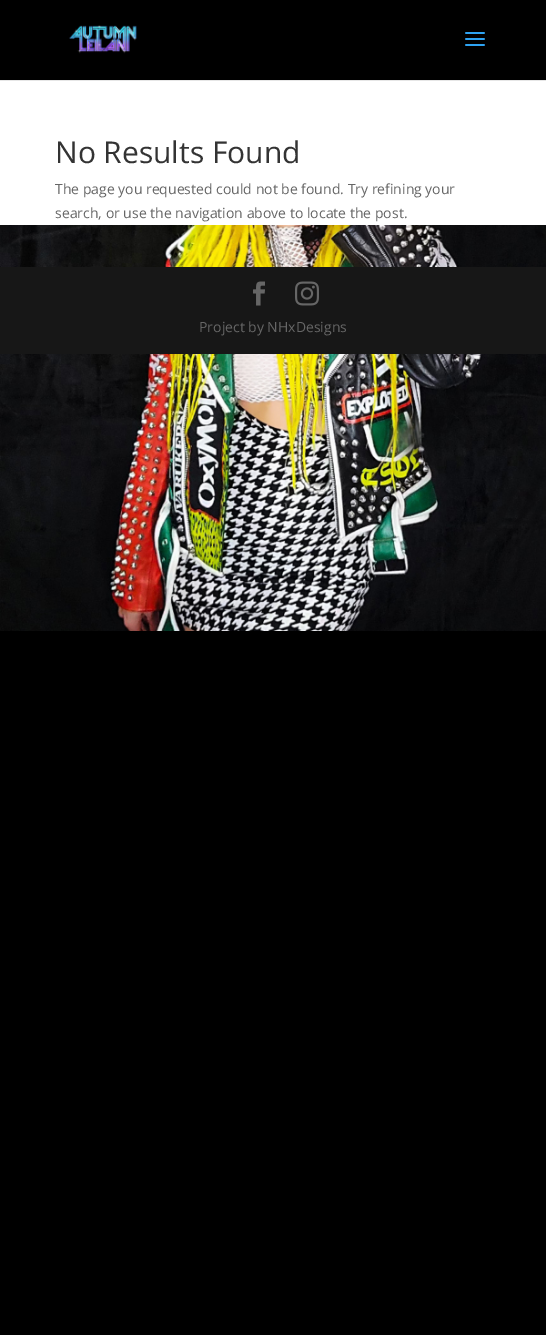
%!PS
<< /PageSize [546 1335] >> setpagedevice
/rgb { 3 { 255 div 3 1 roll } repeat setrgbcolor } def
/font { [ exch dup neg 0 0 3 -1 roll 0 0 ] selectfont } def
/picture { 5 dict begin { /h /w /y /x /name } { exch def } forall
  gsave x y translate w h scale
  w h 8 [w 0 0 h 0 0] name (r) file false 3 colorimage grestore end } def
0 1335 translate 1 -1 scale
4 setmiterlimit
0 0 0 rgb
0 0 546 1335 rectfill
(img/1.rgb) 0 225 546 406 picture
230 230 230 rgb
0 80 546 1 rectfill
(img/2.rgb) 69 25 68 29 picture
(img/3.rgb) 465 32 20 14 picture
255 255 255 rgb
0 81 546 144 rectfill
23 23 23 rgb
0 267 546 87 rectfill
(img/4.rgb) 253 281 12 25 picture
(img/5.rgb) 295 281 24 25 picture
/OpenSans-Regular 30 font
51 51 51 rgb
55 163 moveto (No Results Found) show
/OpenSans-Regular 14 font
102 102 102 rgb
[
  [(The page you requested could not be found. Try refining your) 55 194]
  [(search, or use the navigation above to locate the post.) 55 218]
  [(Project by NHxDesigns) 199 332]
] { aload pop moveto show } forall
showpage
